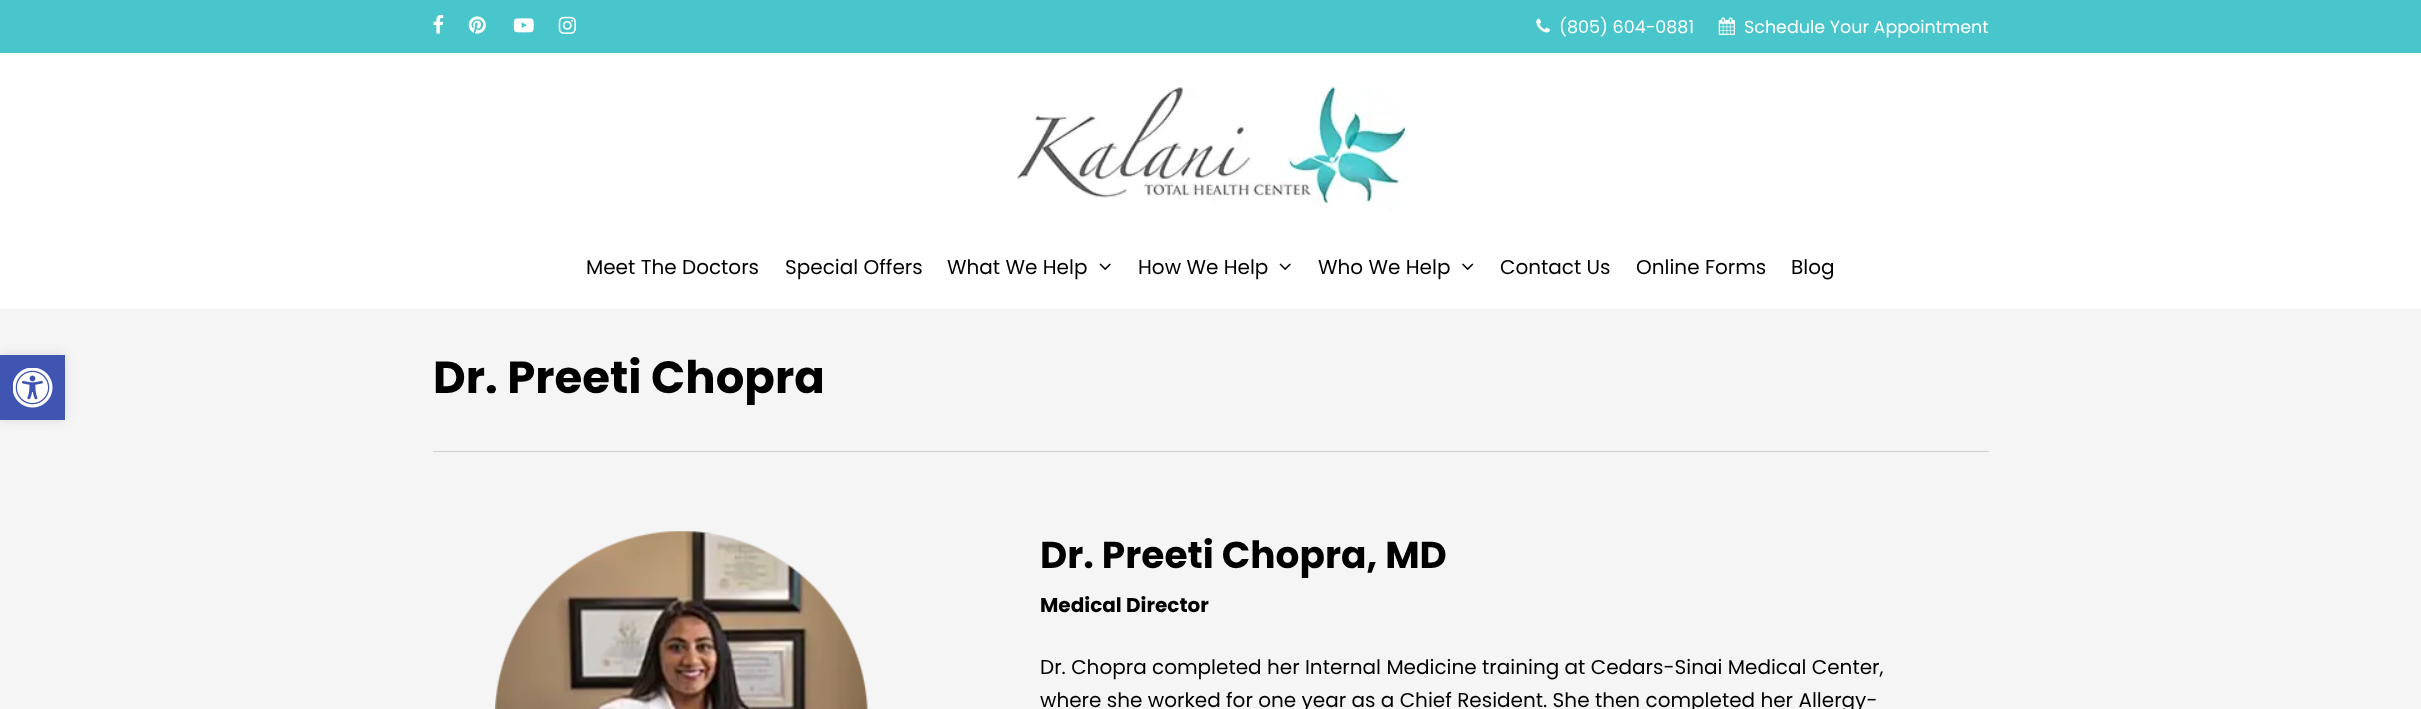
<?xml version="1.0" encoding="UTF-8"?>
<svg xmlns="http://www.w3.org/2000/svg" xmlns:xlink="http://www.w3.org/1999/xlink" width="2421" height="709">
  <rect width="100%" height="100%" fill="#f5f5f5" />
  <rect y="355" width="65" height="65" fill="#000000" fill-opacity="0.1" filter="blur(6px)" />
  <rect y="355" width="65" height="65" fill="#4054b2" />
  <image x="13" y="368" width="40" height="40" xlink:href="image1.png" />
  <rect y="53" width="2421" height="256" fill="#ffffff" />
  <rect width="2421" height="53" fill="#49c6cb" />
  <image x="433" y="15" width="11" height="19" xlink:href="image2.png" />
  <image x="468" y="16" width="18" height="18" xlink:href="image3.png" />
  <image x="513" y="18" width="21" height="15" xlink:href="image4.png" />
  <image x="558" y="16" width="18" height="18" xlink:href="image5.png" />
  <image x="1536" y="18" width="14" height="15" xlink:href="image6.png" />
  <image x="1718" y="17" width="17" height="18" xlink:href="image7.png" />
  <image x="1017" y="87" width="388" height="125" xlink:href="image8.png" />
  <image x="1099" y="263" width="12" height="7" xlink:href="image9.png" />
  <image x="1279" y="263" width="12" height="7" xlink:href="image9.png" />
  <image x="1462" y="263" width="12" height="7" xlink:href="image10.png" />
  <rect x="433" y="451" width="1556" height="1" fill="#d0d0d0" />
  <image x="495" y="531" width="373" height="178" xlink:href="image11.png" />
  <text x="1559" y="33" style="font-family: Poppins; font-size: 17.5px; fill: #ffffff">(805) 604-0881</text>
  <text x="1744" y="33" style="font-family: Poppins; font-size: 17.5px; fill: #ffffff">Schedule Your Appointment</text>
  <text x="586" y="274" style="font-family: Poppins; font-size: 20px; fill: #000000">Meet The Doctors</text>
  <text x="785" y="274" style="font-family: Poppins; font-size: 20px; fill: #000000">Special Offers</text>
  <text x="947" y="274" style="font-family: Poppins; font-size: 20px; fill: #000000">What We Help</text>
  <text x="1138" y="274" style="font-family: Poppins; font-size: 20px; fill: #000000">How We Help</text>
  <text x="1318" y="274" style="font-family: Poppins; font-size: 20px; fill: #000000">Who We Help</text>
  <text x="1500" y="274" style="font-family: Poppins; font-size: 20px; fill: #000000">Contact Us</text>
  <text x="1636" y="274" style="font-family: Poppins; font-size: 20px; fill: #000000">Online Forms</text>
  <text x="1791" y="274" style="font-family: Poppins; font-size: 20px; fill: #000000">Blog</text>
  <text x="433" y="393" style="font-family: Poppins; font-size: 45px; font-weight: bold; fill: #000000">Dr. Preeti Chopra</text>
  <text x="1040" y="568" style="font-family: Poppins; font-size: 37.5px; font-weight: bold; fill: #000000">Dr. Preeti Chopra, MD</text>
  <text x="1040" y="612" style="font-family: Poppins; font-size: 20px; font-weight: bold; fill: #000000">Medical Director</text>
  <text x="1040" y="674" style="font-family: Poppins; font-size: 20px; fill: #000000">Dr. Chopra completed her Internal Medicine training at Cedars-Sinai Medical Center,</text>
  <text x="1040" y="707" style="font-family: Poppins; font-size: 20px; fill: #000000">where she worked for one year as a Chief Resident. She then completed her Allergy-</text>
</svg>
